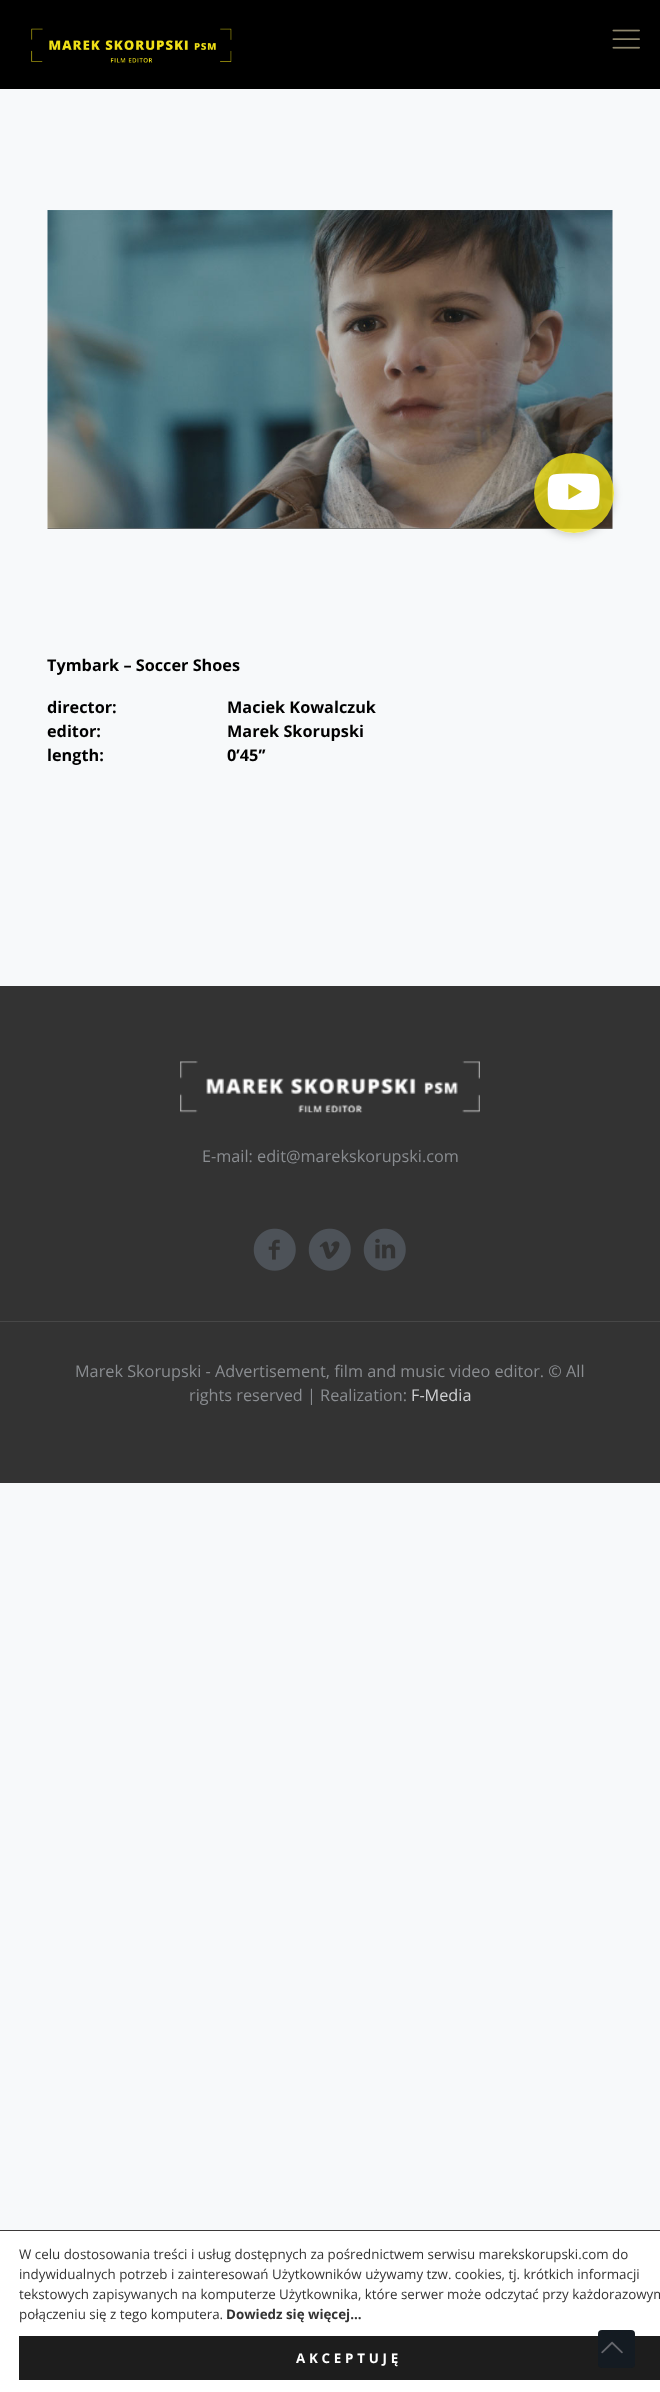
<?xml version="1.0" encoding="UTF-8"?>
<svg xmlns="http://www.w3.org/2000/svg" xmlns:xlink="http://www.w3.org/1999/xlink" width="660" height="2392">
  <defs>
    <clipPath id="clip1"><path d="M 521 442 h 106 v 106 h -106 z m 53 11 c 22 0 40 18 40 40 c 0 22 -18 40 -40 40 c -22 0 -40 -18 -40 -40 c 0 -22 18 -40 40 -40 z" clip-rule="evenodd" /></clipPath>
  </defs>
  <rect width="100%" height="100%" fill="#f7f9fa" />
  <rect width="660" height="89" fill="#000000" />
  <image x="31" y="28" width="201" height="35" xlink:href="image1.png" />
  <image x="612" y="29" width="28" height="20" xlink:href="image2.png" />
  <image x="47" y="210" width="566" height="319" xlink:href="image3.png" />
  <g clip-path="url(#clip1)">
    <rect x="534" y="455" width="80" height="80" rx="40" fill="#000000" fill-opacity="0.2" filter="blur(4px)" />
  </g>
  <circle cx="574" cy="493" r="40" fill="#efdf16" fill-opacity="0.8" />
  <image x="547" y="473" width="53" height="37" xlink:href="image4.png" />
  <rect y="986" width="660" height="497" fill="#333333" />
  <image x="180" y="1061" width="300" height="52" xlink:href="image5.png" />
  <image x="253" y="1228" width="43" height="43" xlink:href="image6.png" />
  <image x="308" y="1228" width="43" height="43" xlink:href="image7.png" />
  <image x="363" y="1228" width="43" height="43" xlink:href="image8.png" />
  <rect y="1321" width="660" height="1" fill="#474747" />
  <rect y="2231" width="660" height="161" fill="#ffffff" />
  <rect y="2230" width="660" height="1" fill="#3b3939" />
  <rect x="19" y="2336" width="641" height="44" fill="#1d1d1d" />
  <rect x="598" y="2330" width="37" height="38" rx="4" fill="#141b22" />
  <image x="601" y="2341" width="22" height="13" xlink:href="image9.png" />
  <text x="47" y="671" style="font-family: Open Sans; font-size: 16.25px; font-weight: bold; fill: #000000">Tymbark – Soccer Shoes</text>
  <text x="47" y="713" style="font-family: Open Sans; font-size: 16.25px; font-weight: bold; fill: #000000">director:</text>
  <text x="227" y="713" style="font-family: Open Sans; font-size: 16.25px; font-weight: bold; fill: #000000">Maciek Kowalczuk</text>
  <text x="47" y="737" style="font-family: Open Sans; font-size: 16.25px; font-weight: bold; fill: #000000">editor:</text>
  <text x="227" y="737" style="font-family: Open Sans; font-size: 16.25px; font-weight: bold; fill: #000000">Marek Skorupski</text>
  <text x="47" y="761" style="font-family: Open Sans; font-size: 16.25px; font-weight: bold; fill: #000000">length:</text>
  <text x="227" y="761" style="font-family: Open Sans; font-size: 16.25px; font-weight: bold; fill: #000000">0’45’’</text>
  <text x="202" y="1162" style="font-family: Open Sans; font-size: 16.25px; fill: #8a8d91">E-mail: edit@marekskorupski.com</text>
  <text x="75" y="1377" style="font-family: Open Sans; font-size: 16.25px; fill: #8a8d91">Marek Skorupski - Advertisement, film and music video editor. © All</text>
  <text x="189" y="1401" style="font-family: Open Sans; font-size: 16.25px; fill: #8a8d91">rights reserved | Realization:</text>
  <text x="411" y="1401" style="font-family: Open Sans; font-size: 16.25px; fill: #d0d1d3">F-Media</text>
  <text x="19" y="2259" style="font-family: Open Sans; font-size: 13.35px; fill: #333333">W celu dostosowania treści i usług dostępnych za pośrednictwem serwisu marekskorupski.com do</text>
  <text x="19" y="2279" style="font-family: Open Sans; font-size: 13.35px; fill: #333333">indywidualnych potrzeb i zainteresowań Użytkowników używamy tzw. cookies, tj. krótkich informacji</text>
  <text x="19" y="2299" style="font-family: Open Sans; font-size: 13.35px; fill: #333333">tekstowych zapisywanych na komputerze Użytkownika, które serwer może odczytać przy każdorazowym</text>
  <text x="19" y="2319" style="font-family: Open Sans; font-size: 13.35px; fill: #333333">połączeniu się z tego komputera.</text>
  <text x="226" y="2319" style="font-family: Open Sans; font-size: 13.35px; font-weight: bold; fill: #333333">Dowiedz się więcej...</text>
  <text x="296" y="2363" style="font-family: Open Sans; font-size: 13.35px; font-weight: bold; letter-spacing: 3.75px; fill: #ffffff">AKCEPTUJĘ</text>
</svg>
